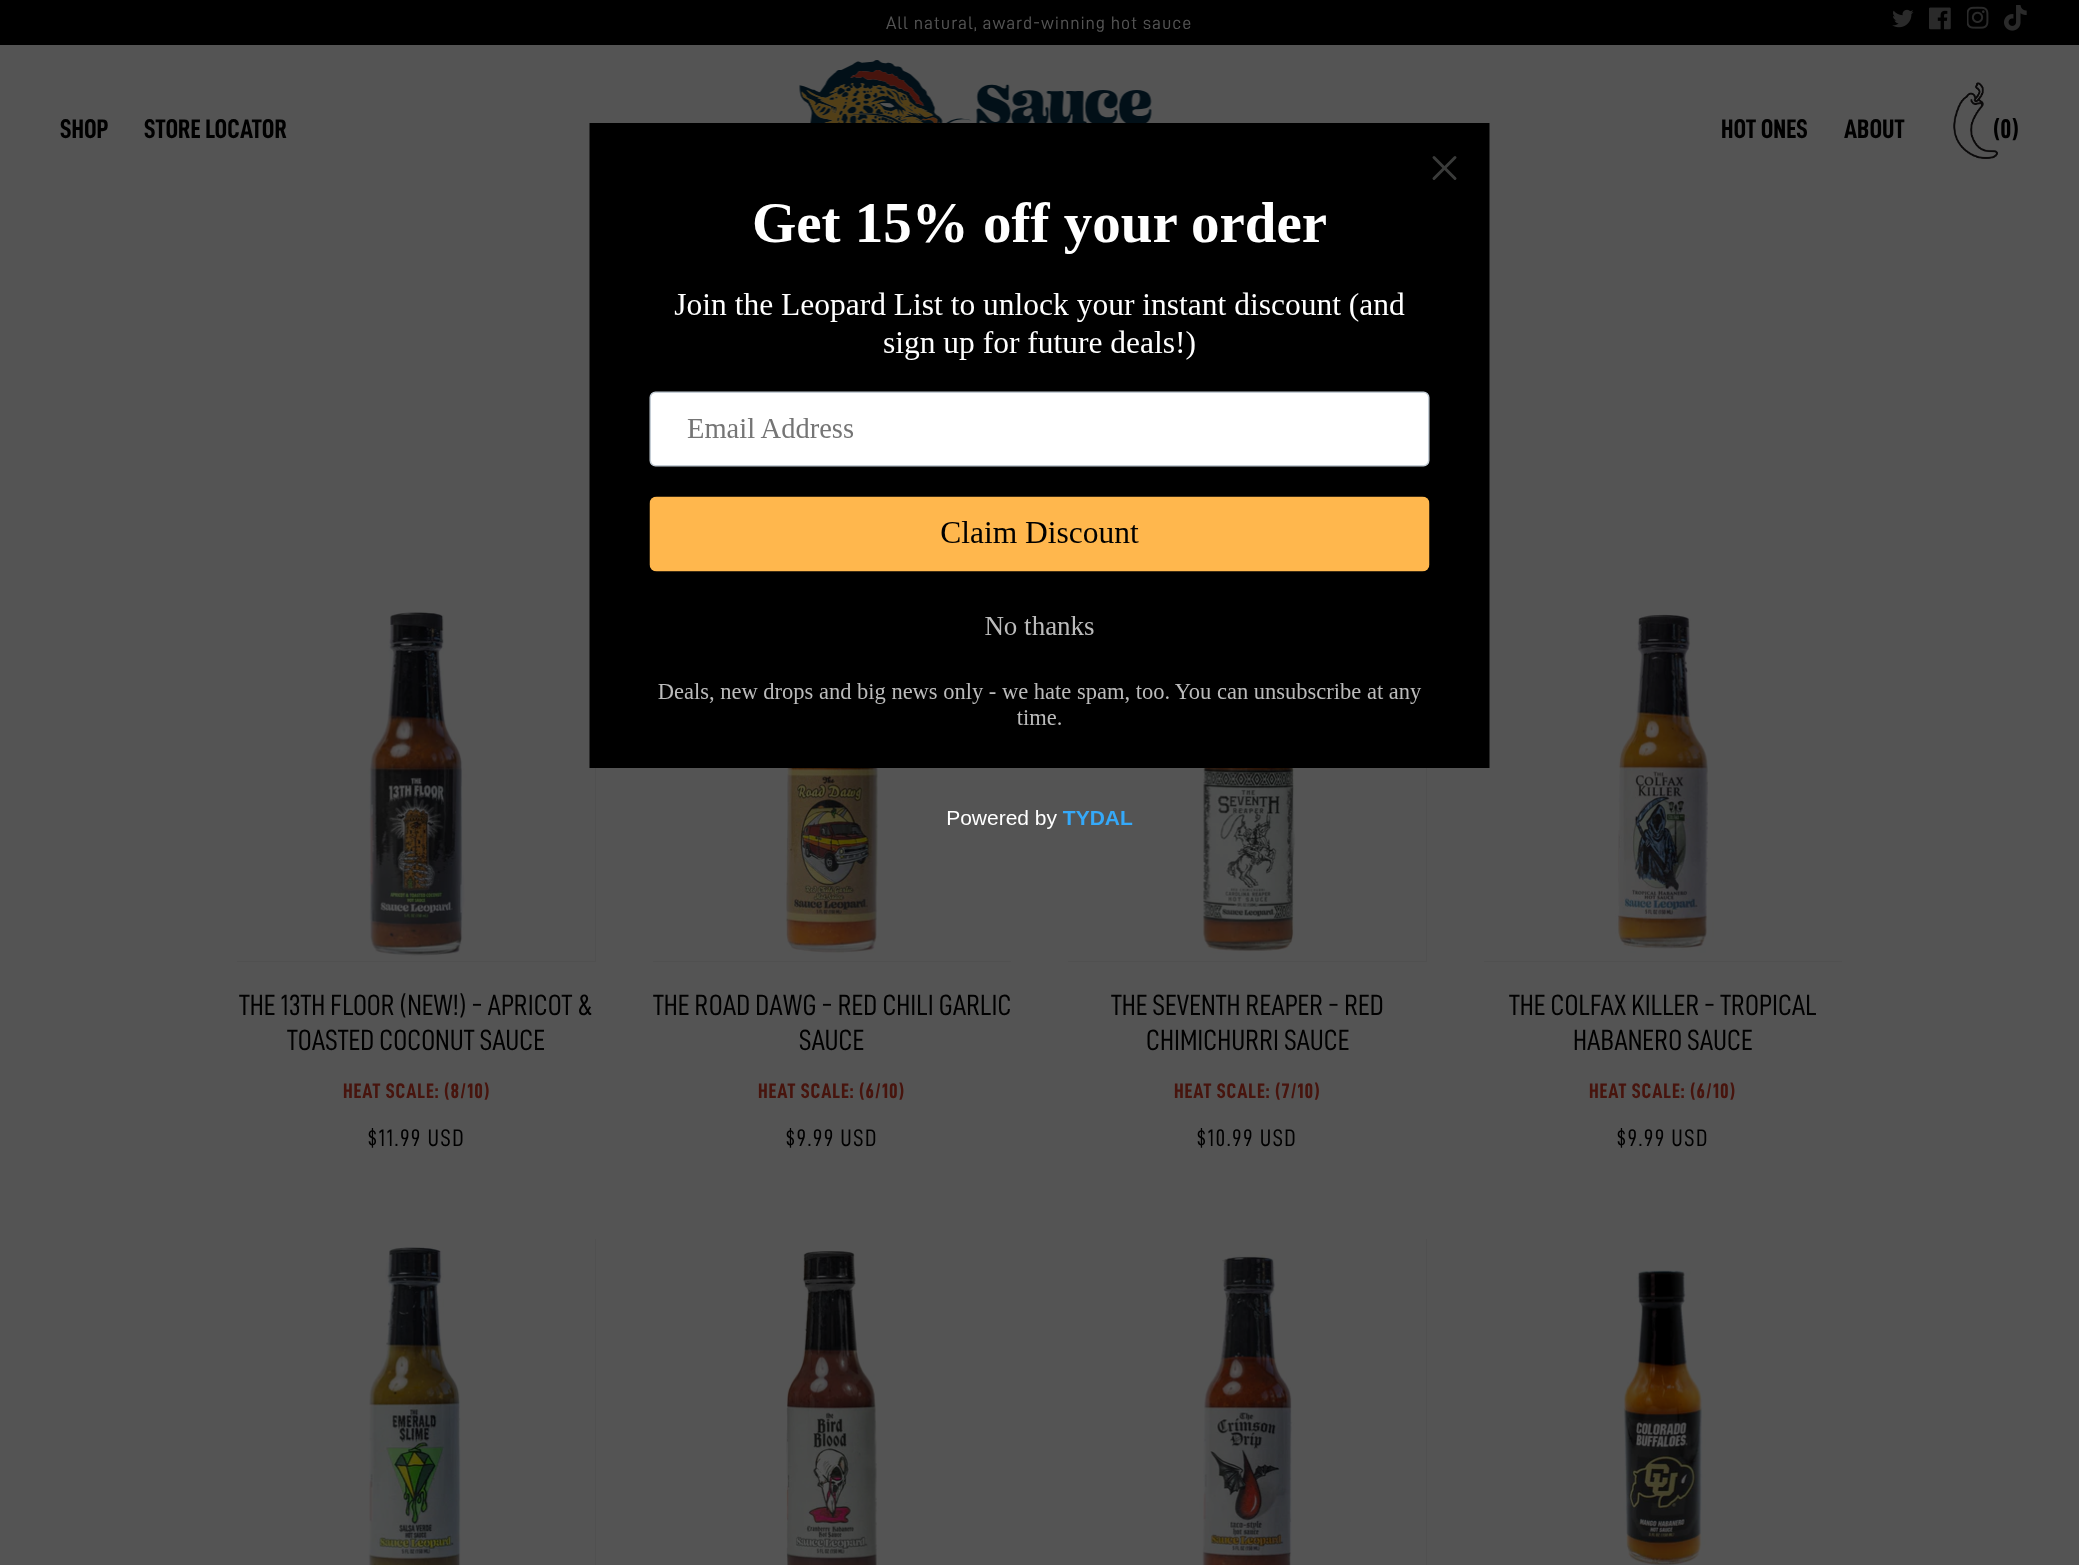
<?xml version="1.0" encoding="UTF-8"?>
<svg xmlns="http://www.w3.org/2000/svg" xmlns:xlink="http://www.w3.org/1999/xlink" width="2079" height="1565">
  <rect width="100%" height="100%" fill="#ffffff" />
  <rect width="2079" height="45" fill="#000000" />
  <image x="1892" y="9" width="22" height="19" xlink:href="image2.png" />
  <image x="1929" y="7" width="22" height="23" xlink:href="image3.png" />
  <image x="1967" y="6" width="22" height="23" xlink:href="image4.png" />
  <image x="2004" y="5" width="23" height="26" xlink:href="image5.png" />
  <image x="799" y="60" width="353" height="63" xlink:href="image6.png" />
  <rect x="237" y="768" width="359" height="194" fill="#f3f3f3" />
  <image x="237" y="603" width="358" height="358" xlink:href="image8.png" />
  <rect x="653" y="961" width="358" height="1" fill="#f3f3f3" />
  <image x="653" y="768" width="358" height="193" xlink:href="image9.png" />
  <rect x="1068" y="768" width="359" height="194" fill="#f3f3f3" />
  <image x="1068" y="768" width="358" height="193" xlink:href="image10.png" />
  <rect x="1484" y="961" width="358" height="1" fill="#f3f3f3" />
  <image x="1484" y="603" width="358" height="358" xlink:href="image11.png" />
  <rect x="595" y="1239" width="1" height="326" fill="#f3f3f3" />
  <image x="237" y="1239" width="358" height="326" xlink:href="image12.png" />
  <image x="653" y="1239" width="358" height="326" xlink:href="image13.png" />
  <rect x="1426" y="1239" width="1" height="326" fill="#f3f3f3" />
  <image x="1068" y="1239" width="358" height="326" xlink:href="image14.png" />
  <image x="1484" y="1239" width="358" height="326" xlink:href="image15.png" />
  <text x="886" y="29" style="font-family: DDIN; font-size: 18px; letter-spacing: 0.9px; fill: #ffffff">All natural, award-winning hot sauce</text>
  <text x="60" y="138" style="font-family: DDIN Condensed; font-size: 27px; font-weight: bold; fill: #000000">SHOP</text>
  <text x="144" y="138" style="font-family: DDIN Condensed; font-size: 27px; font-weight: bold; fill: #000000">STORE LOCATOR</text>
  <text x="1721" y="138" style="font-family: DDIN Condensed; font-size: 27px; font-weight: bold; fill: #000000">HOT ONES</text>
  <text x="1844" y="138" style="font-family: DDIN Condensed; font-size: 27px; font-weight: bold; fill: #000000">ABOUT</text>
  <text x="1993" y="138" style="font-family: DDIN Condensed; font-size: 27px; font-weight: bold; fill: #000000">(0)</text>
  <image x="1953" y="82" width="45" height="77" xlink:href="image7.png" />
  <text x="239" y="1015" style="font-family: DDIN Condensed; font-size: 29.25px; fill: #000000">THE 13TH FLOOR (NEW!) - APRICOT &amp;</text>
  <text x="287" y="1050" style="font-family: DDIN Condensed; font-size: 29.25px; fill: #000000">TOASTED COCONUT SAUCE</text>
  <text x="343" y="1098" style="font-family: DDIN Condensed; font-size: 21px; font-weight: bold; letter-spacing: 0.9px; fill: #d63e29">HEAT SCALE: (8/10)</text>
  <text x="368" y="1146" style="font-family: DDIN Condensed; font-size: 24px; letter-spacing: 1.5px; fill: #000000">$11.99 USD</text>
  <text x="653" y="1015" style="font-family: DDIN Condensed; font-size: 29.25px; fill: #000000">THE ROAD DAWG - RED CHILI GARLIC</text>
  <text x="799" y="1050" style="font-family: DDIN Condensed; font-size: 29.25px; fill: #000000">SAUCE</text>
  <text x="758" y="1098" style="font-family: DDIN Condensed; font-size: 21px; font-weight: bold; letter-spacing: 0.9px; fill: #d63e29">HEAT SCALE: (6/10)</text>
  <text x="786" y="1146" style="font-family: DDIN Condensed; font-size: 24px; letter-spacing: 1.5px; fill: #000000">$9.99 USD</text>
  <text x="1111" y="1015" style="font-family: DDIN Condensed; font-size: 29.25px; fill: #000000">THE SEVENTH REAPER - RED</text>
  <text x="1146" y="1050" style="font-family: DDIN Condensed; font-size: 29.25px; fill: #000000">CHIMICHURRI SAUCE</text>
  <text x="1174" y="1098" style="font-family: DDIN Condensed; font-size: 21px; font-weight: bold; letter-spacing: 0.9px; fill: #d63e29">HEAT SCALE: (7/10)</text>
  <text x="1197" y="1146" style="font-family: DDIN Condensed; font-size: 24px; letter-spacing: 1.5px; fill: #000000">$10.99 USD</text>
  <text x="1509" y="1015" style="font-family: DDIN Condensed; font-size: 29.25px; fill: #000000">THE COLFAX KILLER - TROPICAL</text>
  <text x="1573" y="1050" style="font-family: DDIN Condensed; font-size: 29.25px; fill: #000000">HABANERO SAUCE</text>
  <text x="1589" y="1098" style="font-family: DDIN Condensed; font-size: 21px; font-weight: bold; letter-spacing: 0.9px; fill: #d63e29">HEAT SCALE: (6/10)</text>
  <text x="1617" y="1146" style="font-family: DDIN Condensed; font-size: 24px; letter-spacing: 1.5px; fill: #000000">$9.99 USD</text>
  <image x="0" y="5" width="2079" height="1560" xlink:href="image1.png" />
</svg>
